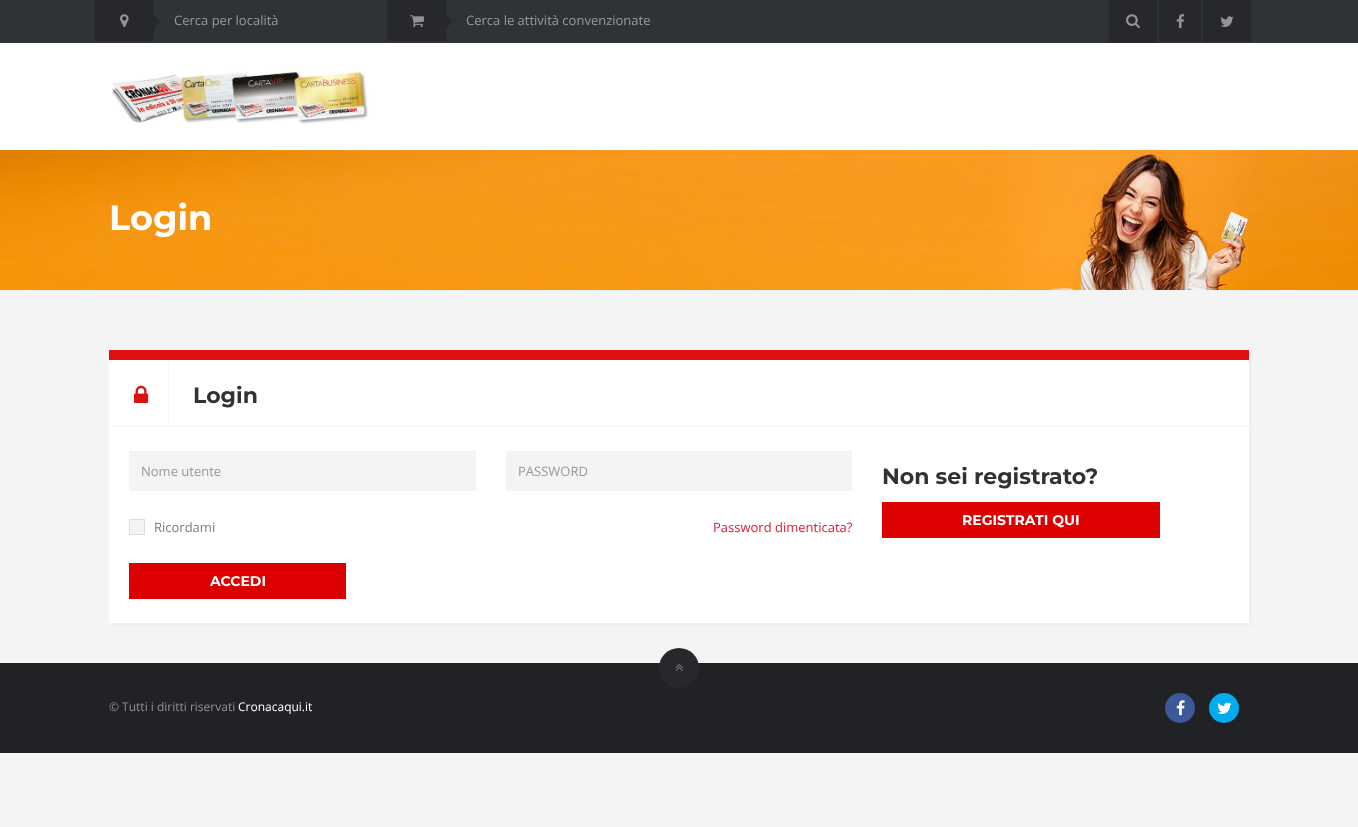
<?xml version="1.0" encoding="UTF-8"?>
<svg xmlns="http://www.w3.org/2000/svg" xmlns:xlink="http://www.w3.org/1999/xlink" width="1358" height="827">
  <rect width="100%" height="100%" fill="#f4f4f4" />
  <rect width="1358" height="43" fill="#2f3336" />
  <rect x="94" width="60" height="41" fill="#27282c" />
  <image x="120" y="14" width="9" height="13" xlink:href="image1.png" />
  <image x="154" y="16" width="6" height="11" xlink:href="image2.png" />
  <rect x="387" width="60" height="41" fill="#27282c" />
  <image x="410" y="15" width="14" height="12" xlink:href="image3.png" />
  <rect x="446" width="1" height="40" fill="#2f3336" />
  <image x="446" y="15" width="7" height="13" xlink:href="image4.png" />
  <rect x="1109" width="48" height="43" fill="#27282c" />
  <image x="1126" y="14" width="14" height="15" xlink:href="image5.png" />
  <rect x="1159" width="42" height="42" fill="#27282c" />
  <image x="1176" y="14" width="8" height="15" xlink:href="image6.png" />
  <rect x="1203" width="48" height="42" fill="#27282c" />
  <image x="1220" y="16" width="14" height="11" xlink:href="image7.png" />
  <rect y="43" width="1358" height="107" fill="#ffffff" />
  <image x="112" y="71" width="257" height="53" xlink:href="image8.png" />
  <image x="0" y="150" width="1358" height="140" xlink:href="image9.png" />
  <path d="M 112 623 v 3 h 1140 v -273 h -3 v 270 z" fill="#efefef" />
  <rect x="109" y="360" width="1140" height="263" fill="#ffffff" />
  <rect x="109" y="350" width="1140" height="10" fill="#dd1111" />
  <rect x="109" y="426" width="1140" height="1" fill="#f4f4f4" />
  <rect x="168" y="360" width="1" height="64" fill="#f4f4f4" />
  <image x="134" y="385" width="15" height="18" xlink:href="image10.png" />
  <rect x="129" y="451" width="347" height="40" fill="#f4f4f4" />
  <rect x="506" y="451" width="346" height="40" fill="#f4f4f4" />
  <rect x="129.5" y="519.5" width="15" height="15" fill="#f4f4f4" stroke="#dddddd" />
  <rect x="129" y="563" width="217" height="36" fill="#dd0000" />
  <rect x="882" y="502" width="278" height="36" fill="#dd0000" />
  <rect y="663" width="1358" height="90" fill="#212225" />
  <circle cx="679" cy="668" r="20" fill="#27282c" />
  <image x="675" y="664" width="8" height="7" xlink:href="image11.png" />
  <circle cx="1180" cy="708" r="15" fill="#3b5998" />
  <image x="1176" y="700" width="9" height="16" xlink:href="image12.png" />
  <circle cx="1224" cy="708" r="15" fill="#00aced" />
  <image x="1217" y="702" width="15" height="12" xlink:href="image13.png" />
  <text x="174" y="25" style="font-family: Open Sans; font-size: 13px; fill: #999999">Cerca per località</text>
  <text x="466" y="25" style="font-family: Open Sans; font-size: 13px; fill: #999999">Cerca le attività convenzionate</text>
  <text x="109" y="230" style="font-family: Montserrat; font-size: 35px; font-weight: bold; fill: #ffffff">Login</text>
  <text x="193" y="403" style="font-family: Montserrat; font-size: 22px; font-weight: bold; fill: #2f3336">Login</text>
  <text x="141" y="476" style="font-family: Open Sans; font-size: 13px; fill: #999999">Nome utente</text>
  <text x="518" y="476" style="font-family: Open Sans; font-size: 13px; fill: #999999">PASSWORD</text>
  <text x="154" y="532" style="font-family: Open Sans; font-size: 13px; fill: #7c7c7c">Ricordami</text>
  <text x="713" y="532" style="font-family: Open Sans; font-size: 13px; fill: #da1b36">Password dimenticata?</text>
  <text x="210" y="586" style="font-family: Montserrat; font-size: 14px; font-weight: bold; fill: #ffffff">ACCEDI</text>
  <text x="882" y="484" style="font-family: Montserrat; font-size: 22px; font-weight: bold; fill: #2f3336">Non sei registrato?</text>
  <text x="962" y="525" style="font-family: Montserrat; font-size: 14px; font-weight: bold; fill: #ffffff">REGISTRATI QUI</text>
  <text x="109" y="711" style="font-family: Open Sans; font-size: 12px; fill: #919394">© Tutti i diritti riservati</text>
  <text x="238" y="711" style="font-family: Open Sans; font-size: 12px; fill: #ffffff">Cronacaqui.it</text>
</svg>
